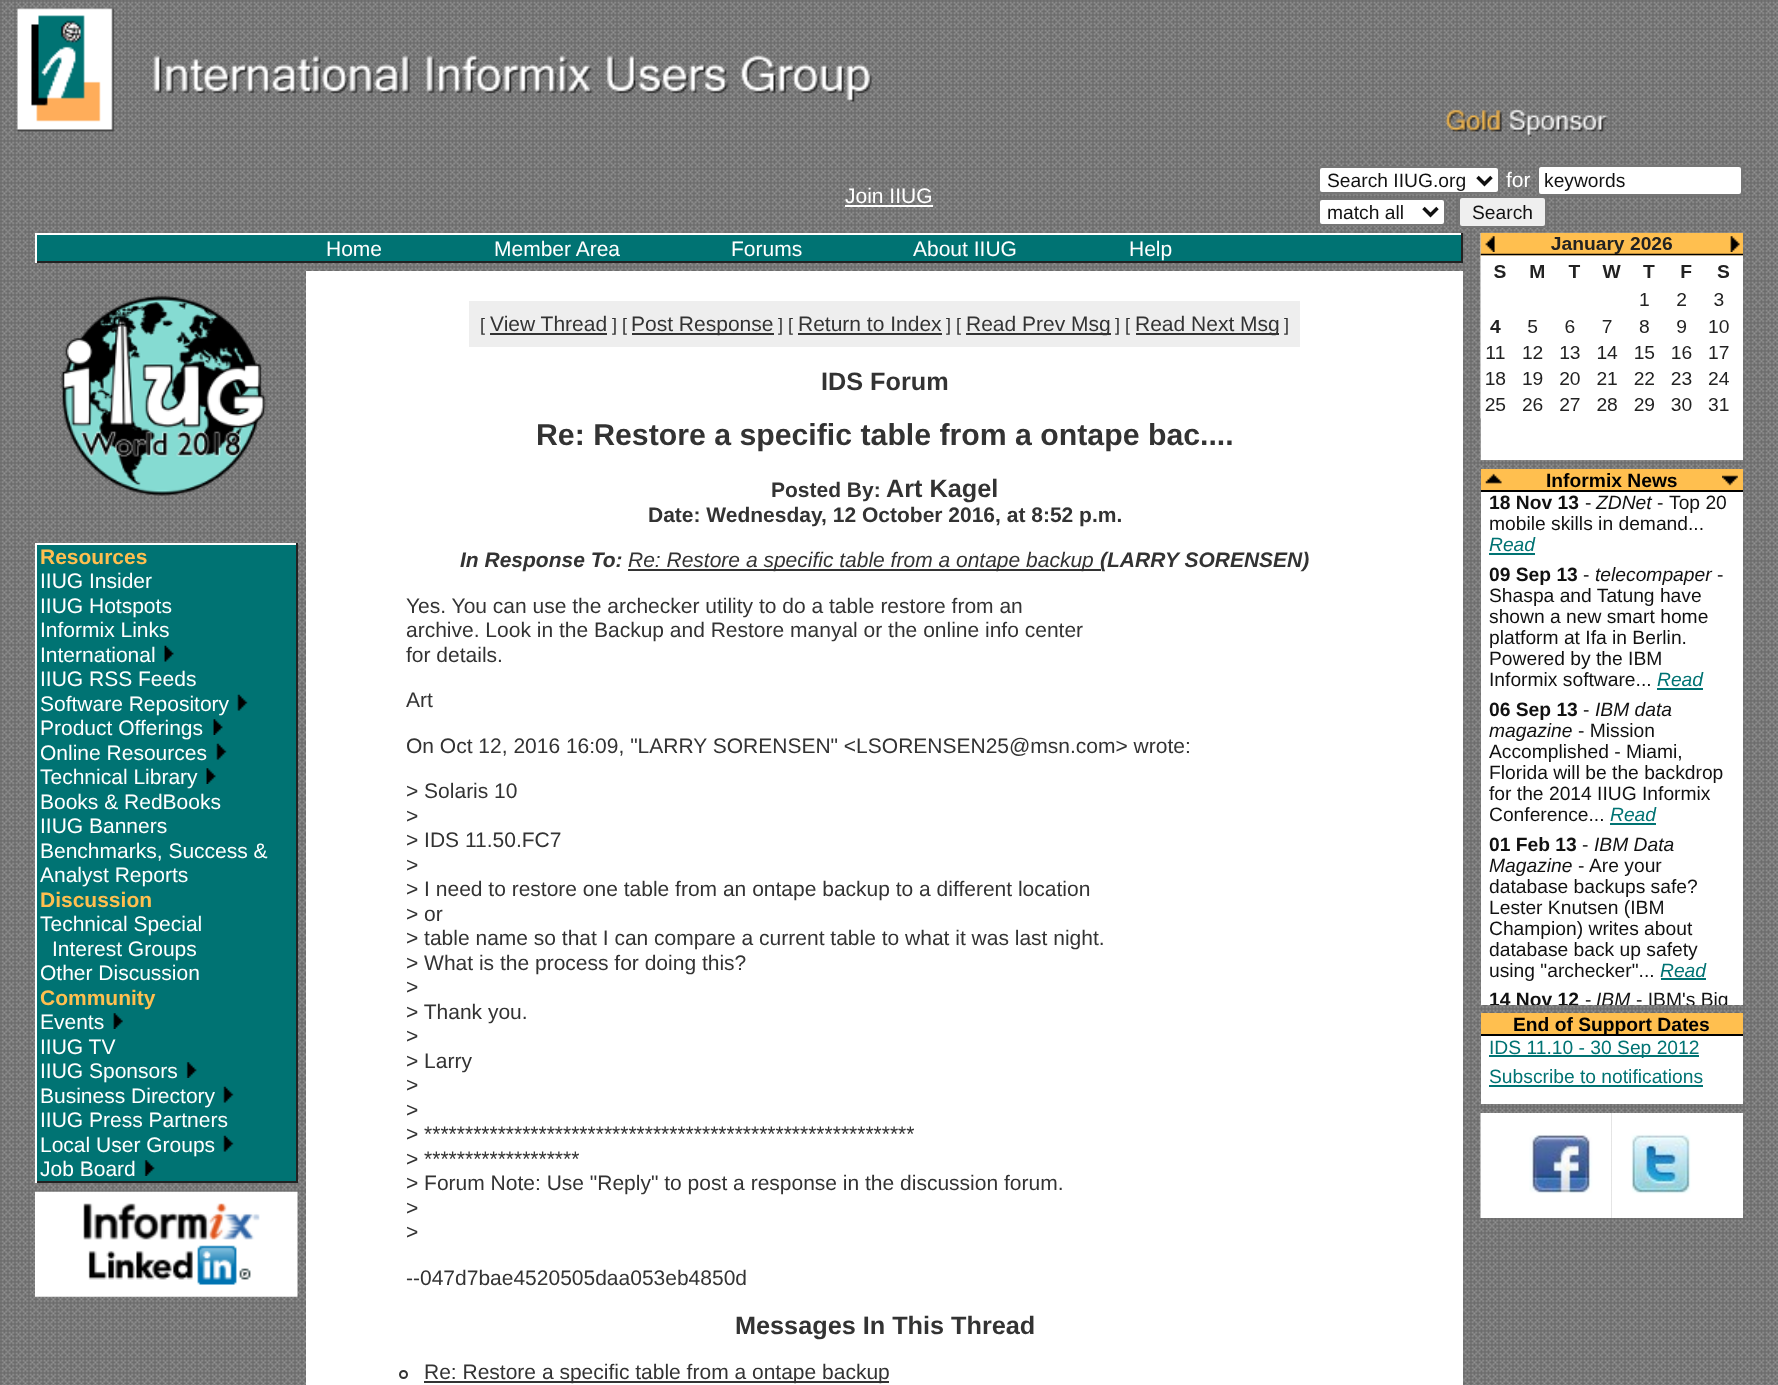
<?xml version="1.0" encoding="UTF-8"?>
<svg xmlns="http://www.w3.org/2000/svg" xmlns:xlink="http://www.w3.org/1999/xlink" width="1778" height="1385">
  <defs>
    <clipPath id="clip1"><rect x="1481" y="492" width="262" height="513" /></clipPath>
  </defs>
  <rect width="100%" height="100%" fill="#ffffff" />
  <image x="0" y="0" width="1778" height="1385" xlink:href="image1.png" />
  <image x="17" y="8" width="855" height="124" xlink:href="image2.png" />
  <image x="1445" y="109" width="162" height="28" xlink:href="image3.png" />
  <rect x="845" y="205" width="88" height="2" fill="#ffffff" />
  <rect x="1319" y="167" width="180" height="26" rx="3" fill="#ffffff" stroke="#767676" stroke-width="2" />
  <path d="M 1477.5 177 l 7 7 l 7 -7" fill="none" stroke="#111111" stroke-width="3.5" />
  <rect x="1538" y="166" width="204" height="29" rx="3" fill="#ffffff" stroke="#767676" stroke-width="2" />
  <rect x="1319" y="199" width="126" height="26" rx="3" fill="#ffffff" stroke="#767676" stroke-width="2" />
  <path d="M 1423.5 208 l 7 7 l 7 -7" fill="none" stroke="#111111" stroke-width="3.5" />
  <rect x="1459" y="197" width="87" height="30" rx="3" fill="#efefef" stroke="#767676" stroke-width="2" />
  <rect x="37" y="235" width="1424" height="26" fill="#007373" />
  <rect x="35" y="233" width="1428" height="2" fill="#ffffff" />
  <rect x="1461" y="233" width="2" height="30" fill="#222222" />
  <rect x="35" y="261" width="1428" height="2" fill="#222222" />
  <rect x="35" y="233" width="2" height="30" fill="#ffffff" />
  <image x="61" y="295" width="205" height="201" xlink:href="image4.png" />
  <rect x="37" y="545" width="259" height="636" fill="#007373" />
  <rect x="35" y="543" width="263" height="2" fill="#ffffff" />
  <rect x="296" y="543" width="2" height="640" fill="#222222" />
  <rect x="35" y="1181" width="263" height="2" fill="#222222" />
  <rect x="35" y="543" width="2" height="640" fill="#ffffff" />
  <image x="164" y="645" width="10" height="17" xlink:href="image5.png" />
  <image x="237" y="694" width="11" height="17" xlink:href="image6.png" />
  <image x="213" y="719" width="10" height="16" xlink:href="image7.png" />
  <image x="216" y="743" width="11" height="17" xlink:href="image8.png" />
  <image x="206" y="768" width="10" height="16" xlink:href="image7.png" />
  <image x="113" y="1013" width="10" height="16" xlink:href="image9.png" />
  <image x="186" y="1062" width="11" height="16" xlink:href="image10.png" />
  <image x="223" y="1086" width="11" height="17" xlink:href="image8.png" />
  <image x="223" y="1135" width="11" height="17" xlink:href="image8.png" />
  <image x="144" y="1160" width="11" height="16" xlink:href="image11.png" />
  <image x="35" y="1191" width="263" height="106" xlink:href="image12.png" />
  <rect x="306" y="271" width="1157" height="1114" fill="#ffffff" />
  <rect x="469" y="301" width="831" height="46" fill="#eeeeee" />
  <rect x="490" y="333" width="117" height="2" fill="#333333" />
  <rect x="632" y="333" width="142" height="2" fill="#333333" />
  <rect x="798" y="333" width="144" height="2" fill="#333333" />
  <rect x="966" y="333" width="145" height="2" fill="#333333" />
  <rect x="1136" y="333" width="143" height="2" fill="#333333" />
  <rect x="628" y="569" width="473" height="2" fill="#333333" />
  <circle cx="403.5" cy="1374.5" r="3.5" fill="none" stroke="#333333" stroke-width="2" />
  <rect x="424" y="1381" width="465" height="2" fill="#333333" />
  <image x="1480" y="232" width="263" height="229" xlink:href="image13.png" />
  <rect x="1481" y="492" width="262" height="513" fill="#ffffff" />
  <rect x="1481" y="469" width="262" height="21" fill="#ffbf4f" />
  <image x="1485" y="473" width="17" height="11" xlink:href="image14.png" />
  <image x="1722" y="475" width="16" height="11" xlink:href="image15.png" />
  <rect x="1481" y="490" width="262" height="2" fill="#000000" />
  <rect x="1489" y="553" width="46" height="2" fill="#007373" />
  <rect x="1657" y="688" width="46" height="2" fill="#007373" />
  <rect x="1610" y="823" width="46" height="2" fill="#007373" />
  <rect x="1661" y="978" width="45" height="2" fill="#007373" />
  <rect x="1481" y="1036" width="262" height="68" fill="#ffffff" />
  <rect x="1481" y="1013" width="262" height="21" fill="#ffbf4f" />
  <rect x="1481" y="1034" width="262" height="2" fill="#000000" />
  <rect x="1489" y="1055" width="210" height="2" fill="#007373" />
  <rect x="1489" y="1085" width="214" height="2" fill="#007373" />
  <image x="1480" y="1113" width="132" height="105" xlink:href="image16.png" />
  <image x="1611" y="1113" width="132" height="105" xlink:href="image17.png" />
  <text x="845" y="203" style="font-family: Liberation Sans; font-size: 21px; fill: #ffffff">Join IIUG</text>
  <text x="1327" y="187" style="font-family: Liberation Sans; font-size: 19.25px; fill: #111111">Search IIUG.org</text>
  <text x="1506" y="187" style="font-family: Liberation Sans; font-size: 21px; fill: #ffffff">for</text>
  <text x="1544" y="187" style="font-family: Liberation Sans; font-size: 19.25px; fill: #111111">keywords</text>
  <text x="1327" y="219" style="font-family: Liberation Sans; font-size: 19.25px; fill: #111111">match all</text>
  <text x="1472" y="219" style="font-family: Liberation Sans; font-size: 19.25px; fill: #111111">Search</text>
  <text x="326" y="256" style="font-family: Liberation Sans; font-size: 21px; fill: #ffffff">Home</text>
  <text x="494" y="256" style="font-family: Liberation Sans; font-size: 21px; fill: #ffffff">Member Area</text>
  <text x="731" y="256" style="font-family: Liberation Sans; font-size: 21px; fill: #ffffff">Forums</text>
  <text x="913" y="256" style="font-family: Liberation Sans; font-size: 21px; fill: #ffffff">About IIUG</text>
  <text x="1129" y="256" style="font-family: Liberation Sans; font-size: 21px; fill: #ffffff">Help</text>
  <text x="40" y="564" style="font-family: Liberation Sans; font-size: 21px; font-weight: bold; fill: #ffbf4f">Resources</text>
  <text x="40" y="588" style="font-family: Liberation Sans; font-size: 21px; fill: #ffffff">IIUG Insider</text>
  <text x="40" y="613" style="font-family: Liberation Sans; font-size: 21px; fill: #ffffff">IIUG Hotspots</text>
  <text x="40" y="637" style="font-family: Liberation Sans; font-size: 21px; fill: #ffffff">Informix Links</text>
  <text x="40" y="662" style="font-family: Liberation Sans; font-size: 21px; fill: #ffffff">International</text>
  <text x="40" y="686" style="font-family: Liberation Sans; font-size: 21px; fill: #ffffff">IIUG RSS Feeds</text>
  <text x="40" y="711" style="font-family: Liberation Sans; font-size: 21px; fill: #ffffff">Software Repository</text>
  <text x="40" y="735" style="font-family: Liberation Sans; font-size: 21px; fill: #ffffff">Product Offerings</text>
  <text x="40" y="760" style="font-family: Liberation Sans; font-size: 21px; fill: #ffffff">Online Resources</text>
  <text x="40" y="784" style="font-family: Liberation Sans; font-size: 21px; fill: #ffffff">Technical Library</text>
  <text x="40" y="809" style="font-family: Liberation Sans; font-size: 21px; fill: #ffffff">Books &amp; RedBooks</text>
  <text x="40" y="833" style="font-family: Liberation Sans; font-size: 21px; fill: #ffffff">IIUG Banners</text>
  <text x="40" y="858" style="font-family: Liberation Sans; font-size: 21px; fill: #ffffff">Benchmarks, Success &amp;</text>
  <text x="40" y="882" style="font-family: Liberation Sans; font-size: 21px; fill: #ffffff">Analyst Reports</text>
  <text x="40" y="907" style="font-family: Liberation Sans; font-size: 21px; font-weight: bold; fill: #ffbf4f">Discussion</text>
  <text x="40" y="931" style="font-family: Liberation Sans; font-size: 21px; fill: #ffffff">Technical Special</text>
  <text x="52" y="956" style="font-family: Liberation Sans; font-size: 21px; fill: #ffffff">Interest Groups</text>
  <text x="40" y="980" style="font-family: Liberation Sans; font-size: 21px; fill: #ffffff">Other Discussion</text>
  <text x="40" y="1005" style="font-family: Liberation Sans; font-size: 21px; font-weight: bold; fill: #ffbf4f">Community</text>
  <text x="40" y="1029" style="font-family: Liberation Sans; font-size: 21px; fill: #ffffff">Events</text>
  <text x="40" y="1054" style="font-family: Liberation Sans; font-size: 21px; fill: #ffffff">IIUG TV</text>
  <text x="40" y="1078" style="font-family: Liberation Sans; font-size: 21px; fill: #ffffff">IIUG Sponsors</text>
  <text x="40" y="1103" style="font-family: Liberation Sans; font-size: 21px; fill: #ffffff">Business Directory</text>
  <text x="40" y="1127" style="font-family: Liberation Sans; font-size: 21px; fill: #ffffff">IIUG Press Partners</text>
  <text x="40" y="1152" style="font-family: Liberation Sans; font-size: 21px; fill: #ffffff">Local User Groups</text>
  <text x="40" y="1176" style="font-family: Liberation Sans; font-size: 21px; fill: #ffffff">Job Board</text>
  <text x="480" y="331" style="font-family: Liberation Sans; font-size: 18px; fill: #333333">[</text>
  <text x="490" y="331" style="font-family: Liberation Sans; font-size: 21px; fill: #333333">View Thread</text>
  <text x="612" y="331" style="font-family: Liberation Sans; font-size: 18px; fill: #333333">] [</text>
  <text x="631" y="331" style="font-family: Liberation Sans; font-size: 21px; fill: #333333">Post Response</text>
  <text x="778" y="331" style="font-family: Liberation Sans; font-size: 18px; fill: #333333">] [</text>
  <text x="798" y="331" style="font-family: Liberation Sans; font-size: 21px; fill: #333333">Return to Index</text>
  <text x="946" y="331" style="font-family: Liberation Sans; font-size: 18px; fill: #333333">] [</text>
  <text x="966" y="331" style="font-family: Liberation Sans; font-size: 21px; fill: #333333">Read Prev Msg</text>
  <text x="1115" y="331" style="font-family: Liberation Sans; font-size: 18px; fill: #333333">] [</text>
  <text x="1135" y="331" style="font-family: Liberation Sans; font-size: 21px; fill: #333333">Read Next Msg</text>
  <text x="1284" y="331" style="font-family: Liberation Sans; font-size: 18px; fill: #333333">]</text>
  <text x="821" y="390" style="font-family: Liberation Sans; font-size: 25.25px; font-weight: bold; fill: #333333">IDS Forum</text>
  <text x="536" y="445" style="font-family: Liberation Sans; font-size: 30.25px; font-weight: bold; fill: #333333">Re: Restore a specific table from a ontape bac....</text>
  <text x="771" y="497" style="font-family: Liberation Sans; font-size: 21px; font-weight: bold; fill: #333333">Posted By:</text>
  <text x="886" y="497" style="font-family: Liberation Sans; font-size: 25.25px; font-weight: bold; fill: #333333">Art Kagel</text>
  <text x="648" y="522" style="font-family: Liberation Sans; font-size: 21px; font-weight: bold; fill: #333333">Date: Wednesday, 12 October 2016, at 8:52 p.m.</text>
  <text x="460" y="567" style="font-family: Liberation Sans; font-size: 21px; font-weight: bold; font-style: italic; fill: #333333">In Response To:</text>
  <text x="628" y="567" style="font-family: Liberation Sans; font-size: 21px; font-style: italic; fill: #333333">Re: Restore a specific table from a ontape backup</text>
  <text x="1100" y="567" style="font-family: Liberation Sans; font-size: 21px; font-weight: bold; font-style: italic; fill: #333333">(LARRY SORENSEN)</text>
  <text x="406" y="613" style="font-family: Liberation Sans; font-size: 21px; fill: #333333">Yes. You can use the archecker utility to do a table restore from an</text>
  <text x="406" y="637" style="font-family: Liberation Sans; font-size: 21px; fill: #333333">archive. Look in the Backup and Restore manyal or the online info center</text>
  <text x="406" y="662" style="font-family: Liberation Sans; font-size: 21px; fill: #333333">for details.</text>
  <text x="406" y="707" style="font-family: Liberation Sans; font-size: 21px; fill: #333333">Art</text>
  <text x="406" y="753" style="font-family: Liberation Sans; font-size: 21px; fill: #333333">On Oct 12, 2016 16:09, "LARRY SORENSEN" &lt;LSORENSEN25@msn.com&gt; wrote:</text>
  <text x="406" y="798" style="font-family: Liberation Sans; font-size: 21px; fill: #333333">&gt; Solaris 10</text>
  <text x="406" y="823" style="font-family: Liberation Sans; font-size: 21px; fill: #333333">&gt;</text>
  <text x="406" y="847" style="font-family: Liberation Sans; font-size: 21px; fill: #333333">&gt; IDS 11.50.FC7</text>
  <text x="406" y="872" style="font-family: Liberation Sans; font-size: 21px; fill: #333333">&gt;</text>
  <text x="406" y="896" style="font-family: Liberation Sans; font-size: 21px; fill: #333333">&gt; I need to restore one table from an ontape backup to a different location</text>
  <text x="406" y="921" style="font-family: Liberation Sans; font-size: 21px; fill: #333333">&gt; or</text>
  <text x="406" y="945" style="font-family: Liberation Sans; font-size: 21px; fill: #333333">&gt; table name so that I can compare a current table to what it was last night.</text>
  <text x="406" y="970" style="font-family: Liberation Sans; font-size: 21px; fill: #333333">&gt; What is the process for doing this?</text>
  <text x="406" y="994" style="font-family: Liberation Sans; font-size: 21px; fill: #333333">&gt;</text>
  <text x="406" y="1019" style="font-family: Liberation Sans; font-size: 21px; fill: #333333">&gt; Thank you.</text>
  <text x="406" y="1043" style="font-family: Liberation Sans; font-size: 21px; fill: #333333">&gt;</text>
  <text x="406" y="1068" style="font-family: Liberation Sans; font-size: 21px; fill: #333333">&gt; Larry</text>
  <text x="406" y="1092" style="font-family: Liberation Sans; font-size: 21px; fill: #333333">&gt;</text>
  <text x="406" y="1117" style="font-family: Liberation Sans; font-size: 21px; fill: #333333">&gt;</text>
  <text x="406" y="1141" style="font-family: Liberation Sans; font-size: 21px; fill: #333333">&gt; ************************************************************</text>
  <text x="406" y="1166" style="font-family: Liberation Sans; font-size: 21px; fill: #333333">&gt; *******************</text>
  <text x="406" y="1190" style="font-family: Liberation Sans; font-size: 21px; fill: #333333">&gt; Forum Note: Use "Reply" to post a response in the discussion forum.</text>
  <text x="406" y="1215" style="font-family: Liberation Sans; font-size: 21px; fill: #333333">&gt;</text>
  <text x="406" y="1239" style="font-family: Liberation Sans; font-size: 21px; fill: #333333">&gt;</text>
  <text x="406" y="1285" style="font-family: Liberation Sans; font-size: 21px; fill: #333333">--047d7bae4520505daa053eb4850d</text>
  <text x="735" y="1334" style="font-family: Liberation Sans; font-size: 25.25px; font-weight: bold; fill: #333333">Messages In This Thread</text>
  <text x="424" y="1379" style="font-family: Liberation Sans; font-size: 21px; fill: #333333">Re: Restore a specific table from a ontape backup</text>
  <text x="1546" y="487" style="font-family: Liberation Sans; font-size: 19.25px; font-weight: bold; fill: #000000">Informix News</text>
  <text x="1489" y="509" style="font-family: Liberation Sans; font-size: 19.25px; font-weight: bold; fill: #111111">18 Nov 13</text>
  <text x="1585" y="509" style="font-family: Liberation Sans; font-size: 19.25px; fill: #111111">-</text>
  <text x="1596" y="509" style="font-family: Liberation Sans; font-size: 19.25px; font-style: italic; fill: #111111">ZDNet</text>
  <text x="1657" y="509" style="font-family: Liberation Sans; font-size: 19.25px; fill: #111111">-</text>
  <text x="1669" y="509" style="font-family: Liberation Sans; font-size: 19.25px; fill: #111111">Top 20</text>
  <text x="1489" y="530" style="font-family: Liberation Sans; font-size: 19.25px; fill: #111111">mobile skills in demand...</text>
  <text x="1489" y="551" style="font-family: Liberation Sans; font-size: 19.25px; font-style: italic; fill: #007373">Read</text>
  <text x="1489" y="581" style="font-family: Liberation Sans; font-size: 19.25px; font-weight: bold; fill: #111111">09 Sep 13</text>
  <text x="1583" y="581" style="font-family: Liberation Sans; font-size: 19.25px; fill: #111111">-</text>
  <text x="1595" y="581" style="font-family: Liberation Sans; font-size: 19.25px; font-style: italic; fill: #111111">telecompaper</text>
  <text x="1717" y="581" style="font-family: Liberation Sans; font-size: 19.25px; fill: #111111">-</text>
  <text x="1489" y="602" style="font-family: Liberation Sans; font-size: 19.25px; fill: #111111">Shaspa and Tatung have</text>
  <text x="1489" y="623" style="font-family: Liberation Sans; font-size: 19.25px; fill: #111111">shown a new smart home</text>
  <text x="1489" y="644" style="font-family: Liberation Sans; font-size: 19.25px; fill: #111111">platform at Ifa in Berlin.</text>
  <text x="1489" y="665" style="font-family: Liberation Sans; font-size: 19.25px; fill: #111111">Powered by the IBM</text>
  <text x="1489" y="686" style="font-family: Liberation Sans; font-size: 19.25px; fill: #111111">Informix software...</text>
  <text x="1657" y="686" style="font-family: Liberation Sans; font-size: 19.25px; font-style: italic; fill: #007373">Read</text>
  <text x="1489" y="716" style="font-family: Liberation Sans; font-size: 19.25px; font-weight: bold; fill: #111111">06 Sep 13</text>
  <text x="1583" y="716" style="font-family: Liberation Sans; font-size: 19.25px; fill: #111111">-</text>
  <text x="1595" y="716" style="font-family: Liberation Sans; font-size: 19.25px; font-style: italic; fill: #111111">IBM data</text>
  <text x="1489" y="737" style="font-family: Liberation Sans; font-size: 19.25px; font-style: italic; fill: #111111">magazine</text>
  <text x="1578" y="737" style="font-family: Liberation Sans; font-size: 19.25px; fill: #111111">- Mission</text>
  <text x="1489" y="758" style="font-family: Liberation Sans; font-size: 19.25px; fill: #111111">Accomplished - Miami,</text>
  <text x="1489" y="779" style="font-family: Liberation Sans; font-size: 19.25px; fill: #111111">Florida will be the backdrop</text>
  <text x="1489" y="800" style="font-family: Liberation Sans; font-size: 19.25px; fill: #111111">for the 2014 IIUG Informix</text>
  <text x="1489" y="821" style="font-family: Liberation Sans; font-size: 19.25px; fill: #111111">Conference...</text>
  <text x="1610" y="821" style="font-family: Liberation Sans; font-size: 19.25px; font-style: italic; fill: #007373">Read</text>
  <text x="1489" y="851" style="font-family: Liberation Sans; font-size: 19.25px; font-weight: bold; fill: #111111">01 Feb 13</text>
  <text x="1582" y="851" style="font-family: Liberation Sans; font-size: 19.25px; fill: #111111">-</text>
  <text x="1594" y="851" style="font-family: Liberation Sans; font-size: 19.25px; font-style: italic; fill: #111111">IBM Data</text>
  <text x="1489" y="872" style="font-family: Liberation Sans; font-size: 19.25px; font-style: italic; fill: #111111">Magazine</text>
  <text x="1578" y="872" style="font-family: Liberation Sans; font-size: 19.25px; fill: #111111">-</text>
  <text x="1589" y="872" style="font-family: Liberation Sans; font-size: 19.25px; fill: #111111">Are your</text>
  <text x="1489" y="893" style="font-family: Liberation Sans; font-size: 19.25px; fill: #111111">database backups safe?</text>
  <text x="1489" y="914" style="font-family: Liberation Sans; font-size: 19.25px; fill: #111111">Lester Knutsen (IBM</text>
  <text x="1489" y="935" style="font-family: Liberation Sans; font-size: 19.25px; fill: #111111">Champion) writes about</text>
  <text x="1489" y="956" style="font-family: Liberation Sans; font-size: 19.25px; fill: #111111">database back up safety</text>
  <text x="1489" y="977" style="font-family: Liberation Sans; font-size: 19.25px; fill: #111111">using "archecker"...</text>
  <text x="1660" y="977" style="font-family: Liberation Sans; font-size: 19.25px; font-style: italic; fill: #007373">Read</text>
  <g clip-path="url(#clip1)">
    <text x="1489" y="1006" style="font-family: Liberation Sans; font-size: 19.25px; font-weight: bold; fill: #111111">14 Nov 12</text>
  </g>
  <text x="1585" y="1006" style="font-family: Liberation Sans; font-size: 19.25px; fill: #111111">-</text>
  <g clip-path="url(#clip1)">
    <text x="1596" y="1006" style="font-family: Liberation Sans; font-size: 19.25px; font-style: italic; fill: #111111">IBM</text>
    <text x="1636" y="1006" style="font-family: Liberation Sans; font-size: 19.25px; fill: #111111">- IBM's Big</text>
  </g>
  <text x="1513" y="1031" style="font-family: Liberation Sans; font-size: 19.25px; font-weight: bold; fill: #000000">End of Support Dates</text>
  <text x="1489" y="1054" style="font-family: Liberation Sans; font-size: 19.25px; fill: #007373">IDS 11.10 - 30 Sep 2012</text>
  <text x="1489" y="1083" style="font-family: Liberation Sans; font-size: 19.25px; fill: #007373">Subscribe to notifications</text>
</svg>
